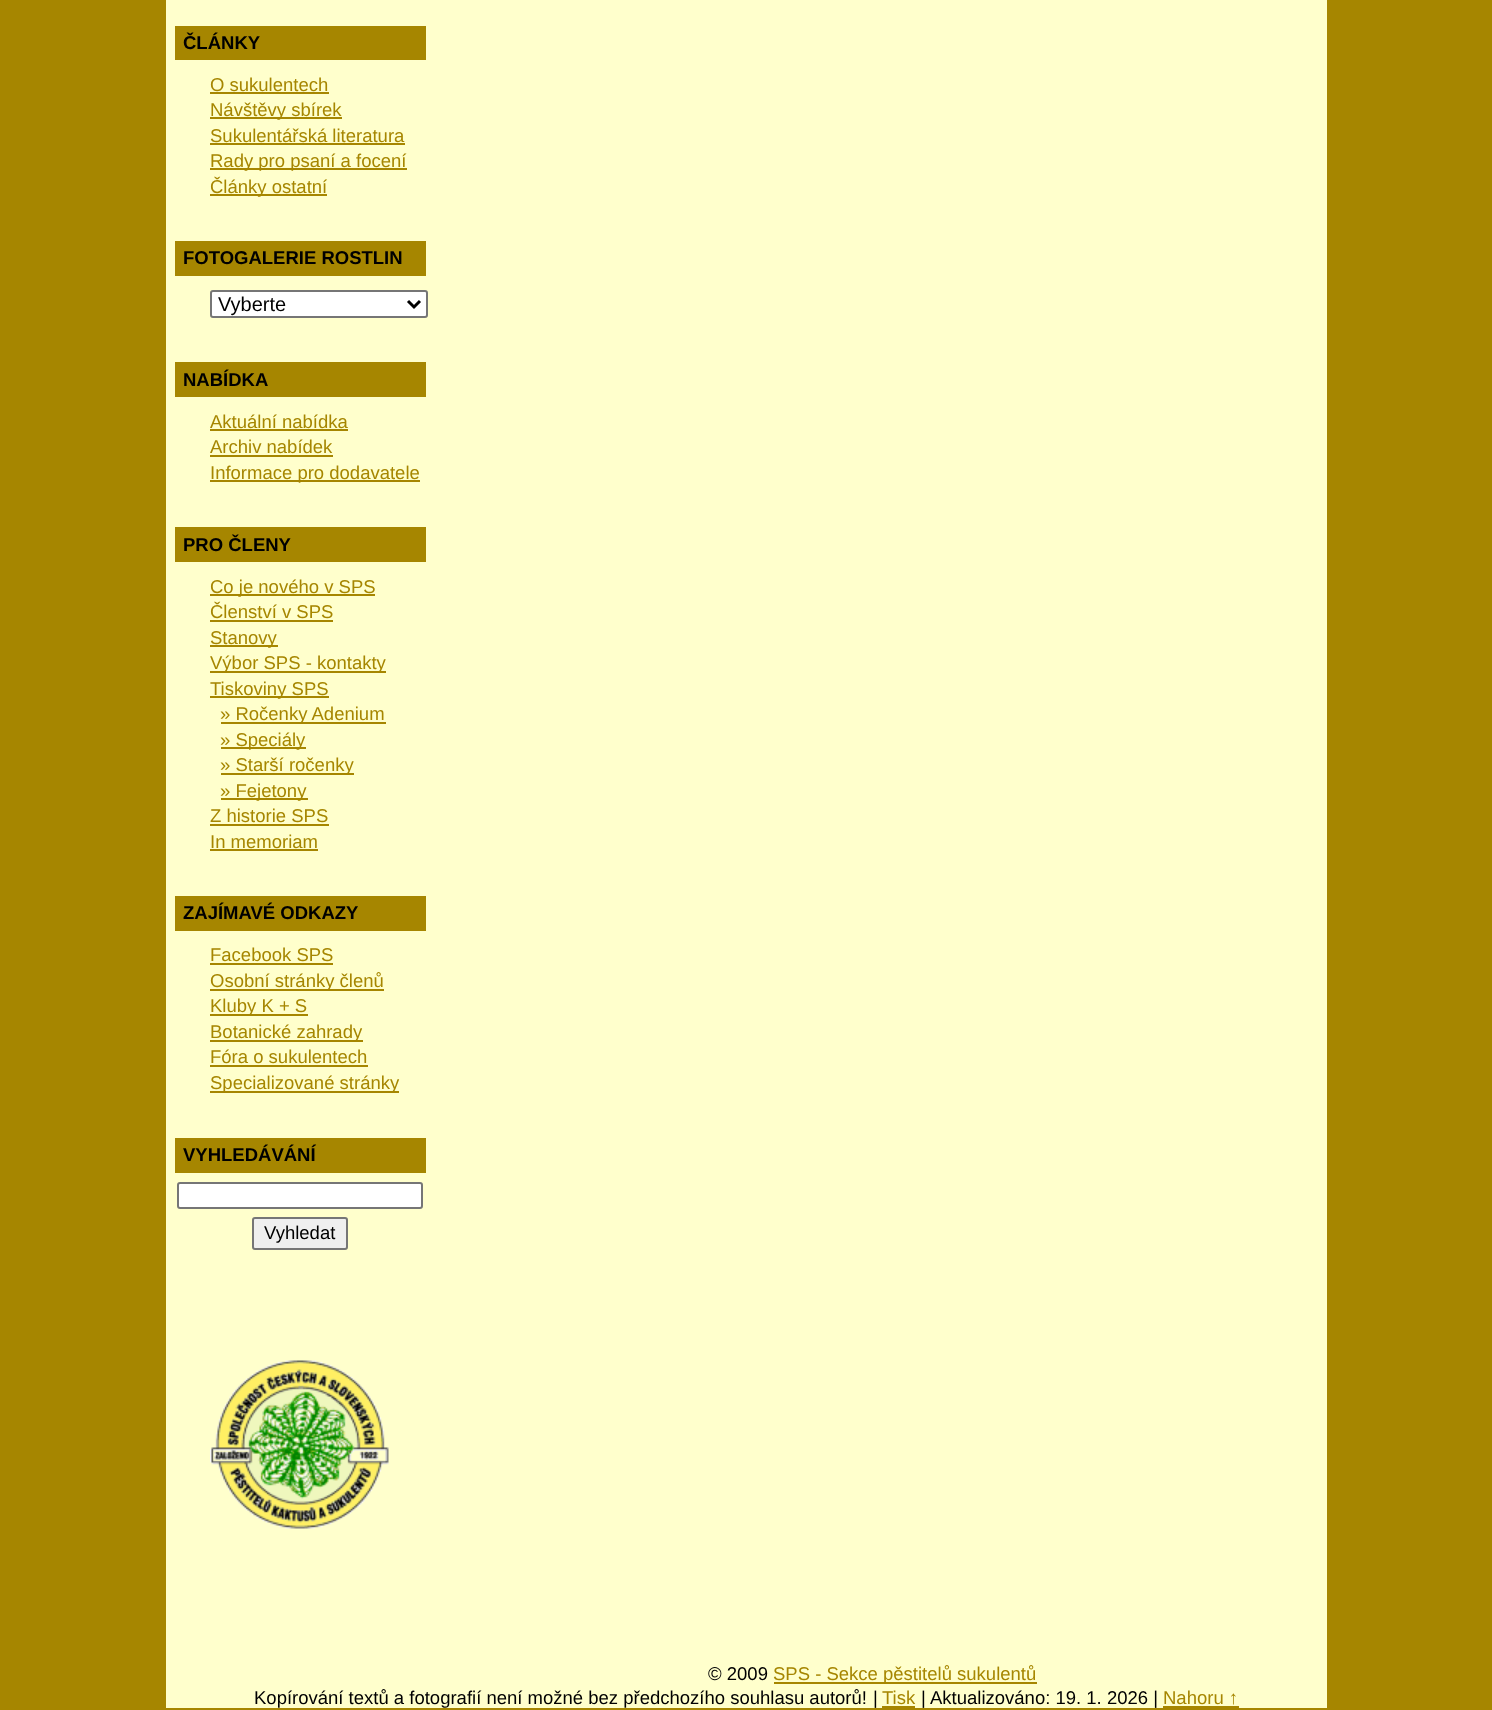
<?xml version="1.0" encoding="UTF-8"?>
<svg xmlns="http://www.w3.org/2000/svg" xmlns:xlink="http://www.w3.org/1999/xlink" width="1492" height="1710">
  <rect width="100%" height="100%" fill="#a68600" />
  <rect x="166" width="1161" height="1708" fill="#ffffcc" />
  <rect x="175" y="26" width="251" height="34" fill="#a68600" />
  <rect x="210" y="92" width="119" height="2" fill="#a68600" />
  <rect x="210" y="117" width="132" height="2" fill="#a68600" />
  <rect x="210" y="143" width="195" height="2" fill="#a68600" />
  <rect x="210" y="168" width="197" height="2" fill="#a68600" />
  <rect x="210" y="194" width="117" height="2" fill="#a68600" />
  <rect x="175" y="241" width="251" height="35" fill="#a68600" />
  <rect x="211" y="291" width="216" height="26" rx="2" fill="#ffffff" stroke="#767676" stroke-width="2" />
  <path d="M 408 301 l 6 6 l 6 -6" fill="none" stroke="#000000" stroke-width="3" />
  <rect x="175" y="362" width="251" height="35" fill="#a68600" />
  <rect x="210" y="429" width="138" height="2" fill="#a68600" />
  <rect x="210" y="455" width="123" height="2" fill="#a68600" />
  <rect x="210" y="480" width="210" height="2" fill="#a68600" />
  <rect x="175" y="527" width="251" height="35" fill="#a68600" />
  <rect x="210" y="594" width="165" height="2" fill="#a68600" />
  <rect x="210" y="620" width="123" height="2" fill="#a68600" />
  <rect x="210" y="645" width="68" height="2" fill="#a68600" />
  <rect x="210" y="671" width="176" height="2" fill="#a68600" />
  <rect x="210" y="696" width="119" height="2" fill="#a68600" />
  <rect x="221" y="722" width="165" height="2" fill="#a68600" />
  <rect x="221" y="747" width="85" height="2" fill="#a68600" />
  <rect x="221" y="773" width="133" height="2" fill="#a68600" />
  <rect x="221" y="798" width="87" height="2" fill="#a68600" />
  <rect x="210" y="824" width="119" height="2" fill="#a68600" />
  <rect x="210" y="849" width="108" height="2" fill="#a68600" />
  <rect x="175" y="896" width="251" height="35" fill="#a68600" />
  <rect x="210" y="963" width="123" height="2" fill="#a68600" />
  <rect x="210" y="989" width="174" height="2" fill="#a68600" />
  <rect x="210" y="1014" width="98" height="2" fill="#a68600" />
  <rect x="210" y="1040" width="153" height="2" fill="#a68600" />
  <rect x="210" y="1065" width="158" height="2" fill="#a68600" />
  <rect x="210" y="1091" width="189" height="2" fill="#a68600" />
  <rect x="175" y="1138" width="251" height="35" fill="#a68600" />
  <rect x="178" y="1183" width="244" height="25" rx="2" fill="#ffffff" stroke="#767676" stroke-width="2" />
  <rect x="253" y="1218" width="94" height="31" rx="2" fill="#efefef" stroke="#767676" stroke-width="2" />
  <image x="210" y="1360" width="179" height="169" xlink:href="image1.png" />
  <rect x="774" y="1682" width="263" height="2" fill="#a68600" />
  <rect x="882" y="1706" width="33" height="2" fill="#a68600" />
  <rect x="1163" y="1706" width="76" height="2" fill="#a68600" />
  <text x="183" y="49" style="font-family: Liberation Sans; font-size: 18.5px; font-weight: bold; fill: #000000">ČLÁNKY</text>
  <text x="210" y="91" style="font-family: Liberation Sans; font-size: 18.5px; fill: #a68600">O sukulentech</text>
  <text x="210" y="116" style="font-family: Liberation Sans; font-size: 18.5px; fill: #a68600">Návštěvy sbírek</text>
  <text x="210" y="142" style="font-family: Liberation Sans; font-size: 18.5px; fill: #a68600">Sukulentářská literatura</text>
  <text x="210" y="167" style="font-family: Liberation Sans; font-size: 18.5px; fill: #a68600">Rady pro psaní a focení</text>
  <text x="210" y="193" style="font-family: Liberation Sans; font-size: 18.5px; fill: #a68600">Články ostatní</text>
  <text x="183" y="264" style="font-family: Liberation Sans; font-size: 18.5px; font-weight: bold; fill: #000000">FOTOGALERIE ROSTLIN</text>
  <text x="218" y="311" style="font-family: Liberation Sans; font-size: 20px; fill: #000000">Vyberte</text>
  <text x="183" y="386" style="font-family: Liberation Sans; font-size: 18.5px; font-weight: bold; fill: #000000">NABÍDKA</text>
  <text x="210" y="428" style="font-family: Liberation Sans; font-size: 18.5px; fill: #a68600">Aktuální nabídka</text>
  <text x="210" y="453" style="font-family: Liberation Sans; font-size: 18.5px; fill: #a68600">Archiv nabídek</text>
  <text x="210" y="479" style="font-family: Liberation Sans; font-size: 18.5px; fill: #a68600">Informace pro dodavatele</text>
  <text x="183" y="551" style="font-family: Liberation Sans; font-size: 18.5px; font-weight: bold; fill: #000000">PRO ČLENY</text>
  <text x="210" y="593" style="font-family: Liberation Sans; font-size: 18.5px; fill: #a68600">Co je nového v SPS</text>
  <text x="210" y="618" style="font-family: Liberation Sans; font-size: 18.5px; fill: #a68600">Členství v SPS</text>
  <text x="210" y="644" style="font-family: Liberation Sans; font-size: 18.5px; fill: #a68600">Stanovy</text>
  <text x="210" y="669" style="font-family: Liberation Sans; font-size: 18.5px; fill: #a68600">Výbor SPS - kontakty</text>
  <text x="210" y="695" style="font-family: Liberation Sans; font-size: 18.5px; fill: #a68600">Tiskoviny SPS</text>
  <text x="220" y="720" style="font-family: Liberation Sans; font-size: 18.5px; fill: #a68600">» Ročenky Adenium</text>
  <text x="220" y="746" style="font-family: Liberation Sans; font-size: 18.5px; fill: #a68600">» Speciály</text>
  <text x="220" y="771" style="font-family: Liberation Sans; font-size: 18.5px; fill: #a68600">» Starší ročenky</text>
  <text x="220" y="797" style="font-family: Liberation Sans; font-size: 18.5px; fill: #a68600">» Fejetony</text>
  <text x="210" y="822" style="font-family: Liberation Sans; font-size: 18.5px; fill: #a68600">Z historie SPS</text>
  <text x="210" y="848" style="font-family: Liberation Sans; font-size: 18.5px; fill: #a68600">In memoriam</text>
  <text x="183" y="919" style="font-family: Liberation Sans; font-size: 18.5px; font-weight: bold; fill: #000000">ZAJÍMAVÉ ODKAZY</text>
  <text x="210" y="961" style="font-family: Liberation Sans; font-size: 18.5px; fill: #a68600">Facebook SPS</text>
  <text x="210" y="987" style="font-family: Liberation Sans; font-size: 18.5px; fill: #a68600">Osobní stránky členů</text>
  <text x="210" y="1012" style="font-family: Liberation Sans; font-size: 18.5px; fill: #a68600">Kluby K + S</text>
  <text x="210" y="1038" style="font-family: Liberation Sans; font-size: 18.5px; fill: #a68600">Botanické zahrady</text>
  <text x="210" y="1063" style="font-family: Liberation Sans; font-size: 18.5px; fill: #a68600">Fóra o sukulentech</text>
  <text x="210" y="1089" style="font-family: Liberation Sans; font-size: 18.5px; fill: #a68600">Specializované stránky</text>
  <text x="183" y="1161" style="font-family: Liberation Sans; font-size: 18.5px; font-weight: bold; fill: #000000">VYHLEDÁVÁNÍ</text>
  <text x="264" y="1239" style="font-family: Liberation Sans; font-size: 18.5px; fill: #000000">Vyhledat</text>
  <text x="708" y="1680" style="font-family: Liberation Sans; font-size: 18.5px; fill: #000000">© 2009</text>
  <text x="773" y="1680" style="font-family: Liberation Sans; font-size: 18.5px; fill: #a68600">SPS - Sekce pěstitelů sukulentů</text>
  <text x="254" y="1704" style="font-family: Liberation Sans; font-size: 18.5px; fill: #000000">Kopírování textů a fotografií není možné bez předchozího souhlasu autorů!</text>
  <text x="873" y="1704" style="font-family: Liberation Sans; font-size: 18.5px; fill: #000000">|</text>
  <text x="882" y="1704" style="font-family: Liberation Sans; font-size: 18.5px; fill: #a68600">Tisk</text>
  <text x="921" y="1704" style="font-family: Liberation Sans; font-size: 18.5px; fill: #000000">|</text>
  <text x="930" y="1704" style="font-family: Liberation Sans; font-size: 18.5px; fill: #000000">Aktualizováno: 19. 1. 2026 |</text>
  <text x="1163" y="1704" style="font-family: Liberation Sans; font-size: 18.5px; fill: #a68600">Nahoru ↑</text>
</svg>
